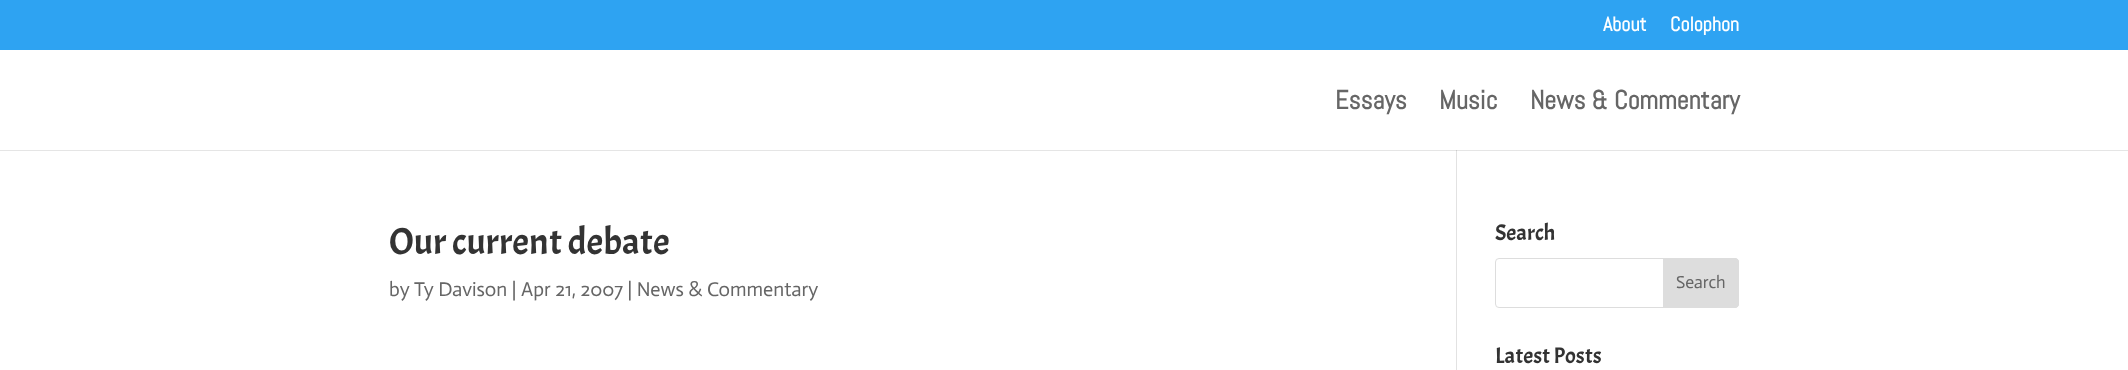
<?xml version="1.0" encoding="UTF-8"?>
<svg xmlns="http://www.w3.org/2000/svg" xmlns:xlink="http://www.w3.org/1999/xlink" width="2128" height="370">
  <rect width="100%" height="100%" fill="#ffffff" />
  <rect width="2128" height="50" fill="#2ea3f2" />
  <rect x="1456" y="150" width="1" height="220" fill="#e2e2e2" />
  <path d="M 0 150 v 1 h 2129 v -100 v 99 z" fill="#000000" fill-opacity="0.1" />
  <rect x="1495.5" y="258.5" width="243" height="49" rx="3.5" fill="none" stroke="#dddddd" />
  <path d="M 1663.5 258.5 h 71.5 c 2 0 3.5 1.5 3.5 3.5 v 42 c 0 2 -1.5 3.5 -3.5 3.5 h -71.5 z" fill="#dddddd" stroke="#dddddd" />
  <text x="1603" y="31" style="font-family: Abel; font-size: 20px; font-weight: bold; fill: #ffffff">About</text>
  <text x="1670" y="31" style="font-family: Abel; font-size: 20px; font-weight: bold; fill: #ffffff">Colophon</text>
  <text x="1335" y="109" style="font-family: Abel; font-size: 26.25px; font-weight: bold; fill: #666666">Essays</text>
  <text x="1439" y="109" style="font-family: Abel; font-size: 26.25px; font-weight: bold; fill: #666666">Music</text>
  <text x="1530" y="109" style="font-family: Abel; font-size: 26.25px; font-weight: bold; fill: #666666">News &amp; Commentary</text>
  <text x="389" y="254" style="font-family: Acme; font-size: 37.5px; fill: #333333">Our current debate</text>
  <text x="389" y="296" style="font-family: Actor; font-size: 20px; fill: #666666">by</text>
  <text x="414" y="296" style="font-family: Actor; font-size: 20px; fill: #666666">Ty Davison | Apr 21, 2007 | News &amp; Commentary</text>
  <text x="1495" y="240" style="font-family: Acme; font-size: 22.5px; fill: #333333">Search</text>
  <text x="1676" y="288" style="font-family: Actor; font-size: 17.5px; fill: #666666">Search</text>
  <text x="1495" y="363" style="font-family: Acme; font-size: 22.5px; fill: #333333">Latest Posts</text>
</svg>
